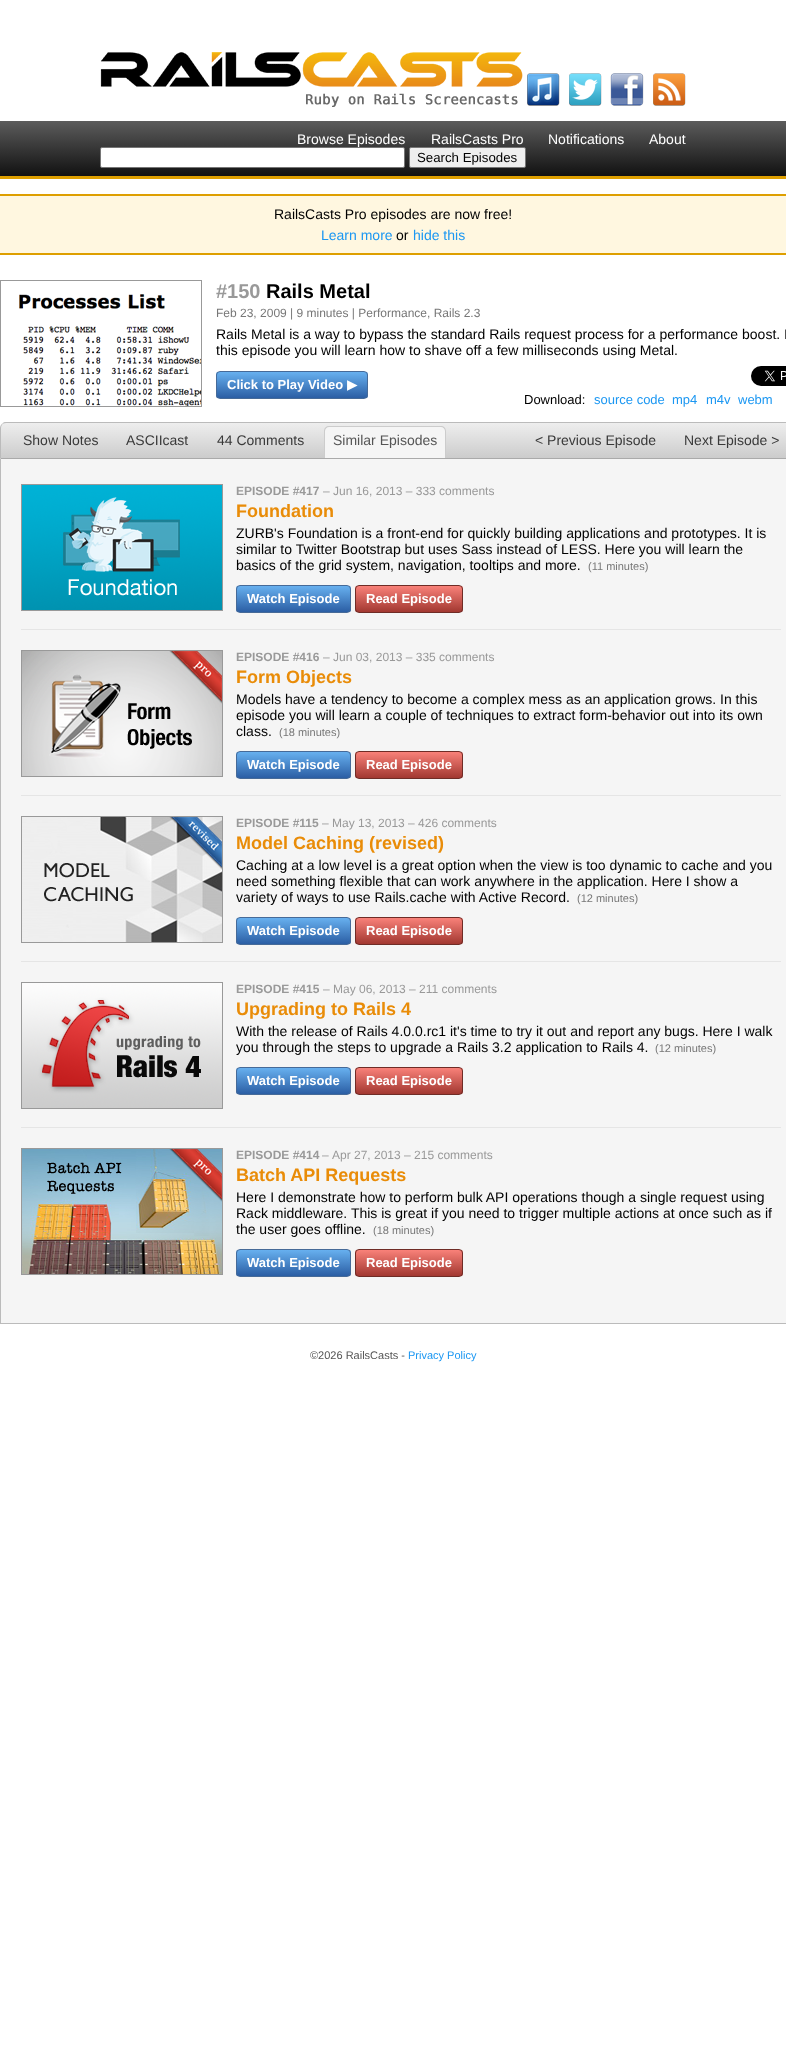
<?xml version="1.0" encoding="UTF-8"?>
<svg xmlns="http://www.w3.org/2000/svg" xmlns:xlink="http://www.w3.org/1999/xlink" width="786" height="2064">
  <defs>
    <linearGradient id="g1" gradientUnits="userSpaceOnUse" x1="0" y1="121" x2="0" y2="176"><stop offset="0" stop-color="#5c5c5c" /><stop offset="1" stop-color="#111111" /></linearGradient>
    <clipPath id="clip1"><rect x="216" y="371" width="152" height="28" rx="4" /></clipPath>
    <linearGradient id="g2" gradientUnits="userSpaceOnUse" x1="217" y1="372" x2="217" y2="398"><stop offset="0" stop-color="#67b0ef" /><stop offset="1" stop-color="#2b5ea4" /></linearGradient>
    <clipPath id="clip2"><path d="M 6 422 h 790 c 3.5 0 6 2.5 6 6 v 31 h -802 v -31 c 0 -3.5 2.5 -6 6 -6 z" /></clipPath>
    <linearGradient id="g3" gradientUnits="userSpaceOnUse" x1="1" y1="388" x2="1" y2="423"><stop offset="0" stop-color="#eeeeee" /><stop offset="1" stop-color="#cccccc" /></linearGradient>
    <linearGradient id="g4" gradientUnits="userSpaceOnUse" x1="1" y1="423" x2="1" y2="458"><stop offset="0" stop-color="#eeeeee" /><stop offset="1" stop-color="#cccccc" /></linearGradient>
    <clipPath id="clip3"><rect x="236" y="585" width="115" height="28" rx="4" /></clipPath>
    <linearGradient id="g5" gradientUnits="userSpaceOnUse" x1="237" y1="586" x2="237" y2="612"><stop offset="0" stop-color="#67b0ef" /><stop offset="1" stop-color="#2b5ea4" /></linearGradient>
    <clipPath id="clip4"><rect x="355" y="585" width="108" height="28" rx="4" /></clipPath>
    <linearGradient id="g6" gradientUnits="userSpaceOnUse" x1="356" y1="586" x2="356" y2="612"><stop offset="0" stop-color="#f98179" /><stop offset="1" stop-color="#a23831" /></linearGradient>
    <clipPath id="clip5"><rect x="236" y="751" width="115" height="28" rx="4" /></clipPath>
    <linearGradient id="g7" gradientUnits="userSpaceOnUse" x1="237" y1="752" x2="237" y2="778"><stop offset="0" stop-color="#67b0ef" /><stop offset="1" stop-color="#2b5ea4" /></linearGradient>
    <clipPath id="clip6"><rect x="355" y="751" width="108" height="28" rx="4" /></clipPath>
    <linearGradient id="g8" gradientUnits="userSpaceOnUse" x1="356" y1="752" x2="356" y2="778"><stop offset="0" stop-color="#f98179" /><stop offset="1" stop-color="#a23831" /></linearGradient>
    <clipPath id="clip7"><rect x="236" y="917" width="115" height="28" rx="4" /></clipPath>
    <linearGradient id="g9" gradientUnits="userSpaceOnUse" x1="237" y1="918" x2="237" y2="944"><stop offset="0" stop-color="#67b0ef" /><stop offset="1" stop-color="#2b5ea4" /></linearGradient>
    <clipPath id="clip8"><rect x="355" y="917" width="108" height="28" rx="4" /></clipPath>
    <linearGradient id="g10" gradientUnits="userSpaceOnUse" x1="356" y1="918" x2="356" y2="944"><stop offset="0" stop-color="#f98179" /><stop offset="1" stop-color="#a23831" /></linearGradient>
    <clipPath id="clip9"><rect x="236" y="1067" width="115" height="28" rx="4" /></clipPath>
    <linearGradient id="g11" gradientUnits="userSpaceOnUse" x1="237" y1="1068" x2="237" y2="1094"><stop offset="0" stop-color="#67b0ef" /><stop offset="1" stop-color="#2b5ea4" /></linearGradient>
    <clipPath id="clip10"><rect x="355" y="1067" width="108" height="28" rx="4" /></clipPath>
    <linearGradient id="g12" gradientUnits="userSpaceOnUse" x1="356" y1="1068" x2="356" y2="1094"><stop offset="0" stop-color="#f98179" /><stop offset="1" stop-color="#a23831" /></linearGradient>
    <clipPath id="clip11"><rect x="236" y="1249" width="115" height="28" rx="4" /></clipPath>
    <linearGradient id="g13" gradientUnits="userSpaceOnUse" x1="237" y1="1250" x2="237" y2="1276"><stop offset="0" stop-color="#67b0ef" /><stop offset="1" stop-color="#2b5ea4" /></linearGradient>
    <clipPath id="clip12"><rect x="355" y="1249" width="108" height="28" rx="4" /></clipPath>
    <linearGradient id="g14" gradientUnits="userSpaceOnUse" x1="356" y1="1250" x2="356" y2="1276"><stop offset="0" stop-color="#f98179" /><stop offset="1" stop-color="#a23831" /></linearGradient>
  </defs>
  <rect width="100%" height="100%" fill="#ffffff" />
  <image x="100" y="51" width="423" height="56" xlink:href="image1.png" />
  <image x="527" y="73" width="33" height="33" xlink:href="image2.png" />
  <image x="569" y="73" width="33" height="33" xlink:href="image3.png" />
  <image x="610" y="73" width="34" height="33" xlink:href="image4.png" />
  <image x="653" y="73" width="33" height="33" xlink:href="image5.png" />
  <rect y="121" width="786" height="55" fill="url(#g1)" />
  <rect y="176" width="786" height="3" fill="#de9f00" />
  <rect x="100.5" y="147.5" width="304" height="20" rx="1.5" fill="#ffffff" stroke="#767676" />
  <rect x="409.5" y="147.5" width="116" height="20" rx="1.5" fill="#efefef" stroke="#767676" />
  <rect y="196" width="786" height="57" fill="#fff7e0" />
  <rect y="194" width="786" height="2" fill="#de9f00" />
  <rect y="253" width="786" height="2" fill="#de9f00" />
  <rect x="0.5" y="280.5" width="201" height="126" fill="none" stroke="#999999" />
  <image x="19" y="294" width="182" height="112" xlink:href="image6.png" />
  <g clip-path="url(#clip1)">
    <rect x="216" y="372" width="152" height="26" fill="url(#g2)" />
  </g>
  <rect x="216.5" y="371.5" width="151" height="27" rx="3.5" fill="none" stroke="#466a98" />
  <image x="751" y="366" width="35" height="20" xlink:href="image7.png" />
  <g clip-path="url(#clip2)">
    <rect y="422" width="6" height="1" fill="url(#g3)" />
    <rect y="423" width="786" height="35" fill="url(#g4)" />
  </g>
  <path d="M 6 422 c -2 0 -3 1 -4 2 c 1 0 2 -1 4 -1 h 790 c 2 0 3 1 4 1 c -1 -1 -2 -2 -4 -2 z" fill="#bbbbbb" />
  <path d="M 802 459 l -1 -1 h -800 l -1 1 z" fill="#aaaaaa" />
  <path d="M 0 459 l 1 -1 v -30 c 0 -1.5 0.5 -3 1.5 -3.5 l -0.5 -0.5 c -1 1 -2 2.5 -2 4 z" fill="#bbbbbb" />
  <path d="M 329 426 h 112 c 3 0 5 2 5 5 v 27 h -122 v -27 c 0 -3 2 -5 5 -5 z" fill="#f5f5f5" />
  <path d="M 329 426 h 112 c 3 0 5 2 5 5 v 27 h -122 v -27 c 0 -3 2 -5 5 -5 z m 0 1 h 112 c 2 0 4 2 4 4 v 27 h -120 v -27 c 0 -2 2 -4 4 -4 z" fill="#cccccc" fill-rule="evenodd" />
  <rect x="1" y="459" width="785" height="864" fill="#f5f5f5" />
  <rect y="1323" width="786" height="1" fill="#bbbbbb" />
  <rect y="459" width="1" height="865" fill="#bbbbbb" />
  <rect x="21" y="629" width="760" height="1" fill="#e5e5e5" />
  <rect x="21.5" y="484.5" width="201" height="126" fill="none" stroke="#999999" />
  <image x="22" y="485" width="200" height="125" xlink:href="image8.png" />
  <g clip-path="url(#clip3)">
    <rect x="236" y="586" width="115" height="26" fill="url(#g5)" />
  </g>
  <rect x="236.5" y="585.5" width="114" height="27" rx="3.5" fill="none" stroke="#466a98" />
  <g clip-path="url(#clip4)">
    <rect x="355" y="586" width="108" height="26" fill="url(#g6)" />
  </g>
  <rect x="355.5" y="585.5" width="107" height="27" rx="3.5" fill="none" stroke="#6f2c26" />
  <rect x="21" y="795" width="760" height="1" fill="#e5e5e5" />
  <rect x="21.5" y="650.5" width="201" height="126" fill="none" stroke="#999999" />
  <image x="22" y="651" width="200" height="125" xlink:href="image9.png" />
  <g clip-path="url(#clip5)">
    <rect x="236" y="752" width="115" height="26" fill="url(#g7)" />
  </g>
  <rect x="236.5" y="751.5" width="114" height="27" rx="3.5" fill="none" stroke="#466a98" />
  <g clip-path="url(#clip6)">
    <rect x="355" y="752" width="108" height="26" fill="url(#g8)" />
  </g>
  <rect x="355.5" y="751.5" width="107" height="27" rx="3.5" fill="none" stroke="#6f2c26" />
  <rect x="21" y="961" width="760" height="1" fill="#e5e5e5" />
  <rect x="21.5" y="816.5" width="201" height="126" fill="none" stroke="#999999" />
  <image x="22" y="817" width="200" height="125" xlink:href="image10.png" />
  <g clip-path="url(#clip7)">
    <rect x="236" y="918" width="115" height="26" fill="url(#g9)" />
  </g>
  <rect x="236.5" y="917.5" width="114" height="27" rx="3.5" fill="none" stroke="#466a98" />
  <g clip-path="url(#clip8)">
    <rect x="355" y="918" width="108" height="26" fill="url(#g10)" />
  </g>
  <rect x="355.5" y="917.5" width="107" height="27" rx="3.5" fill="none" stroke="#6f2c26" />
  <rect x="21" y="1127" width="760" height="1" fill="#e5e5e5" />
  <rect x="21.5" y="982.5" width="201" height="126" fill="none" stroke="#999999" />
  <image x="22" y="983" width="200" height="125" xlink:href="image11.png" />
  <g clip-path="url(#clip9)">
    <rect x="236" y="1068" width="115" height="26" fill="url(#g11)" />
  </g>
  <rect x="236.5" y="1067.5" width="114" height="27" rx="3.5" fill="none" stroke="#466a98" />
  <g clip-path="url(#clip10)">
    <rect x="355" y="1068" width="108" height="26" fill="url(#g12)" />
  </g>
  <rect x="355.5" y="1067.5" width="107" height="27" rx="3.5" fill="none" stroke="#6f2c26" />
  <rect x="21.5" y="1148.5" width="201" height="126" fill="none" stroke="#999999" />
  <image x="22" y="1149" width="200" height="125" xlink:href="image12.png" />
  <g clip-path="url(#clip11)">
    <rect x="236" y="1250" width="115" height="26" fill="url(#g13)" />
  </g>
  <rect x="236.5" y="1249.5" width="114" height="27" rx="3.5" fill="none" stroke="#466a98" />
  <g clip-path="url(#clip12)">
    <rect x="355" y="1250" width="108" height="26" fill="url(#g14)" />
  </g>
  <rect x="355.5" y="1249.5" width="107" height="27" rx="3.5" fill="none" stroke="#6f2c26" />
  <text x="297" y="144" style="font-family: Liberation Sans; font-size: 14px; fill: #ffffff">Browse Episodes</text>
  <text x="431" y="144" style="font-family: Liberation Sans; font-size: 14px; fill: #ffffff">RailsCasts Pro</text>
  <text x="548" y="144" style="font-family: Liberation Sans; font-size: 14px; fill: #ffffff">Notifications</text>
  <text x="649" y="144" style="font-family: Liberation Sans; font-size: 14px; fill: #ffffff">About</text>
  <text x="417" y="162" style="font-family: Liberation Sans; font-size: 13.25px; fill: #000000">Search Episodes</text>
  <text x="274" y="219" style="font-family: Liberation Sans; font-size: 14px; fill: #000000">RailsCasts Pro episodes are now free!</text>
  <text x="321" y="240" style="font-family: Liberation Sans; font-size: 14px; fill: #1b97f2">Learn more</text>
  <text x="396" y="240" style="font-family: Liberation Sans; font-size: 14px; fill: #000000">or</text>
  <text x="413" y="240" style="font-family: Liberation Sans; font-size: 14px; fill: #1b97f2">hide this</text>
  <text x="216" y="298" style="font-family: Liberation Sans; font-size: 20px; font-weight: bold; fill: #999999">#150</text>
  <text x="266" y="298" style="font-family: Liberation Sans; font-size: 20px; font-weight: bold; fill: #000000">Rails Metal</text>
  <text x="216" y="317" style="font-family: Liberation Sans; font-size: 12px; fill: #777777">Feb 23, 2009 | 9 minutes | Performance, Rails 2.3</text>
  <text x="216" y="339" style="font-family: Liberation Sans; font-size: 14px; fill: #000000">Rails Metal is a way to bypass the standard Rails request process for a performance boost. I</text>
  <text x="216" y="355" style="font-family: Liberation Sans; font-size: 14px; fill: #000000">this episode you will learn how to shave off a few milliseconds using Metal.</text>
  <text x="227" y="389" style="font-family: Liberation Sans; font-size: 13px; font-weight: bold; fill: #ffffff">Click to Play Video</text>
  <text x="347" y="389" style="font-family: DejaVu Sans; font-size: 13px; font-weight: bold; fill: #ffffff">▶</text>
  <text x="524" y="404" style="font-family: Liberation Sans; font-size: 13px; fill: #000000">Download:</text>
  <text x="594" y="404" style="font-family: Liberation Sans; font-size: 13px; fill: #1b97f2">source code</text>
  <text x="672" y="404" style="font-family: Liberation Sans; font-size: 13px; fill: #1b97f2">mp4</text>
  <text x="706" y="404" style="font-family: Liberation Sans; font-size: 13px; fill: #1b97f2">m4v</text>
  <text x="738" y="404" style="font-family: Liberation Sans; font-size: 13px; fill: #1b97f2">webm</text>
  <text x="23" y="445" style="font-family: Liberation Sans; font-size: 14px; fill: #393939">Show Notes</text>
  <text x="126" y="445" style="font-family: Liberation Sans; font-size: 14px; fill: #393939">ASCIIcast</text>
  <text x="217" y="445" style="font-family: Liberation Sans; font-size: 14px; fill: #393939">44 Comments</text>
  <text x="333" y="445" style="font-family: Liberation Sans; font-size: 14px; fill: #555555">Similar Episodes</text>
  <text x="535" y="445" style="font-family: Liberation Sans; font-size: 14px; fill: #393939">&lt; Previous Episode</text>
  <text x="684" y="445" style="font-family: Liberation Sans; font-size: 14px; fill: #393939">Next Episode &gt;</text>
  <text x="236" y="495" style="font-family: Liberation Sans; font-size: 12px; font-weight: bold; fill: #999999">EPISODE #417</text>
  <text x="323" y="495" style="font-family: Liberation Sans; font-size: 12px; fill: #999999">– Jun 16, 2013 – 333 comments</text>
  <text x="236" y="517" style="font-family: Liberation Sans; font-size: 18px; font-weight: bold; fill: #e98c08">Foundation</text>
  <text x="236" y="538" style="font-family: Liberation Sans; font-size: 14px; fill: #000000">ZURB's Foundation is a front-end for quickly building applications and prototypes. It is</text>
  <text x="236" y="554" style="font-family: Liberation Sans; font-size: 14px; fill: #000000">similar to Twitter Bootstrap but uses Sass instead of LESS. Here you will learn the</text>
  <text x="236" y="570" style="font-family: Liberation Sans; font-size: 14px; fill: #000000">basics of the grid system, navigation, tooltips and more.</text>
  <text x="588" y="570" style="font-family: Liberation Sans; font-size: 11px; fill: #777777">(11 minutes)</text>
  <text x="247" y="603" style="font-family: Liberation Sans; font-size: 13px; font-weight: bold; fill: #ffffff">Watch Episode</text>
  <text x="366" y="603" style="font-family: Liberation Sans; font-size: 13px; font-weight: bold; fill: #ffffff">Read Episode</text>
  <text x="236" y="661" style="font-family: Liberation Sans; font-size: 12px; font-weight: bold; fill: #999999">EPISODE #416</text>
  <text x="323" y="661" style="font-family: Liberation Sans; font-size: 12px; fill: #999999">– Jun 03, 2013 – 335 comments</text>
  <text x="236" y="683" style="font-family: Liberation Sans; font-size: 18px; font-weight: bold; fill: #e98c08">Form Objects</text>
  <text x="236" y="704" style="font-family: Liberation Sans; font-size: 14px; fill: #000000">Models have a tendency to become a complex mess as an application grows. In this</text>
  <text x="236" y="720" style="font-family: Liberation Sans; font-size: 14px; fill: #000000">episode you will learn a couple of techniques to extract form-behavior out into its own</text>
  <text x="236" y="736" style="font-family: Liberation Sans; font-size: 14px; fill: #000000">class.</text>
  <text x="279" y="736" style="font-family: Liberation Sans; font-size: 11px; fill: #777777">(18 minutes)</text>
  <text x="247" y="769" style="font-family: Liberation Sans; font-size: 13px; font-weight: bold; fill: #ffffff">Watch Episode</text>
  <text x="366" y="769" style="font-family: Liberation Sans; font-size: 13px; font-weight: bold; fill: #ffffff">Read Episode</text>
  <text x="236" y="827" style="font-family: Liberation Sans; font-size: 12px; font-weight: bold; fill: #999999">EPISODE #115</text>
  <text x="322" y="827" style="font-family: Liberation Sans; font-size: 12px; fill: #999999">– May 13, 2013 – 426 comments</text>
  <text x="236" y="849" style="font-family: Liberation Sans; font-size: 18px; font-weight: bold; fill: #e98c08">Model Caching (revised)</text>
  <text x="236" y="870" style="font-family: Liberation Sans; font-size: 14px; fill: #000000">Caching at a low level is a great option when the view is too dynamic to cache and you</text>
  <text x="236" y="886" style="font-family: Liberation Sans; font-size: 14px; fill: #000000">need something flexible that can work anywhere in the application. Here I show a</text>
  <text x="236" y="902" style="font-family: Liberation Sans; font-size: 14px; fill: #000000">variety of ways to use Rails.cache with Active Record.</text>
  <text x="577" y="902" style="font-family: Liberation Sans; font-size: 11px; fill: #777777">(12 minutes)</text>
  <text x="247" y="935" style="font-family: Liberation Sans; font-size: 13px; font-weight: bold; fill: #ffffff">Watch Episode</text>
  <text x="366" y="935" style="font-family: Liberation Sans; font-size: 13px; font-weight: bold; fill: #ffffff">Read Episode</text>
  <text x="236" y="993" style="font-family: Liberation Sans; font-size: 12px; font-weight: bold; fill: #999999">EPISODE #415</text>
  <text x="323" y="993" style="font-family: Liberation Sans; font-size: 12px; fill: #999999">– May 06, 2013 – 211 comments</text>
  <text x="236" y="1015" style="font-family: Liberation Sans; font-size: 18px; font-weight: bold; fill: #e98c08">Upgrading to Rails 4</text>
  <text x="236" y="1036" style="font-family: Liberation Sans; font-size: 14px; fill: #000000">With the release of Rails 4.0.0.rc1 it's time to try it out and report any bugs. Here I walk</text>
  <text x="236" y="1052" style="font-family: Liberation Sans; font-size: 14px; fill: #000000">you through the steps to upgrade a Rails 3.2 application to Rails 4.</text>
  <text x="655" y="1052" style="font-family: Liberation Sans; font-size: 11px; fill: #777777">(12 minutes)</text>
  <text x="247" y="1085" style="font-family: Liberation Sans; font-size: 13px; font-weight: bold; fill: #ffffff">Watch Episode</text>
  <text x="366" y="1085" style="font-family: Liberation Sans; font-size: 13px; font-weight: bold; fill: #ffffff">Read Episode</text>
  <text x="236" y="1159" style="font-family: Liberation Sans; font-size: 12px; font-weight: bold; fill: #999999">EPISODE #414</text>
  <text x="322" y="1159" style="font-family: Liberation Sans; font-size: 12px; fill: #999999">–</text>
  <text x="332" y="1159" style="font-family: Liberation Sans; font-size: 12px; fill: #999999">Apr 27, 2013 – 215 comments</text>
  <text x="236" y="1181" style="font-family: Liberation Sans; font-size: 18px; font-weight: bold; fill: #e98c08">Batch API Requests</text>
  <text x="236" y="1202" style="font-family: Liberation Sans; font-size: 14px; fill: #000000">Here I demonstrate how to perform bulk API operations though a single request using</text>
  <text x="236" y="1218" style="font-family: Liberation Sans; font-size: 14px; fill: #000000">Rack middleware. This is great if you need to trigger multiple actions at once such as if</text>
  <text x="236" y="1234" style="font-family: Liberation Sans; font-size: 14px; fill: #000000">the user goes offline.</text>
  <text x="373" y="1234" style="font-family: Liberation Sans; font-size: 11px; fill: #777777">(18 minutes)</text>
  <text x="247" y="1267" style="font-family: Liberation Sans; font-size: 13px; font-weight: bold; fill: #ffffff">Watch Episode</text>
  <text x="366" y="1267" style="font-family: Liberation Sans; font-size: 13px; font-weight: bold; fill: #ffffff">Read Episode</text>
  <text x="310" y="1359" style="font-family: Liberation Sans; font-size: 11px; fill: #555555">©2026 RailsCasts -</text>
  <text x="408" y="1359" style="font-family: Liberation Sans; font-size: 11px; fill: #1b97f2">Privacy Policy</text>
</svg>
